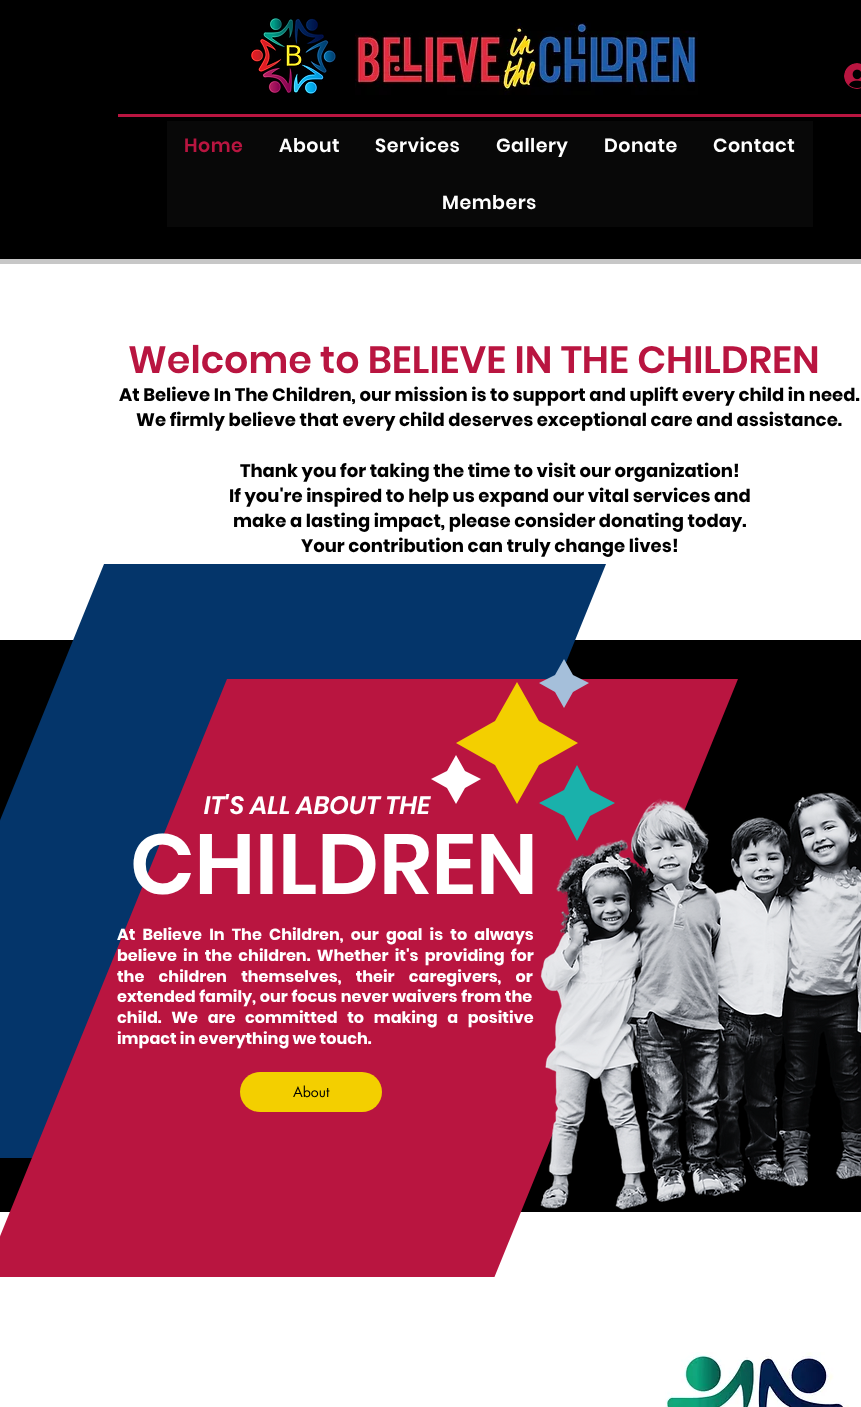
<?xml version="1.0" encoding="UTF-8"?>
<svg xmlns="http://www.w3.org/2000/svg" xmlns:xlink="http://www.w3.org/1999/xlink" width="861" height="1407">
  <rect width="100%" height="100%" fill="#000000" />
  <image x="844" y="63" width="17" height="26" xlink:href="image1.png" />
  <rect x="118" y="114" width="743" height="3" fill="#b91540" />
  <image x="251" y="18" width="85" height="78" xlink:href="image2.png" />
  <image x="355" y="22" width="343" height="73" xlink:href="image3.png" />
  <rect x="167" y="121" width="646" height="106" fill="#080808" />
  <rect y="259" width="861" height="5" fill="#c7c7c7" />
  <rect y="264" width="861" height="1013" fill="#ffffff" />
  <rect y="640" width="861" height="572" fill="#000000" />
  <path d="M 365 1158 h -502 l 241 -594 h 502 z" fill="#04356a" />
  <path d="M 492 1283 h -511 l 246 -604 h 511 z" fill="#b91540" />
  <path d="M 456 755 l 9 16 l 16 8 l -16 9 l -9 16 l -9 -16 l -16 -9 l 16 -8 z" fill="#ffffff" />
  <image x="540" y="792" width="321" height="418" xlink:href="image4.png" />
  <path d="M 517 682 l 22 39 l 39 22 l -39 22 l -22 39 l -22 -39 l -39 -22 l 39 -22 z" fill="#f3cf00" />
  <path d="M 564 659 l 9 16 l 16 8 l -16 9 l -9 16 l -9 -16 l -16 -9 l 16 -8 z" fill="#a5bfda" />
  <path d="M 577 765 l 13 25 l 25 13 l -25 13 l -13 25 l -13 -25 l -25 -13 l 25 -13 z" fill="#1ab1ab" />
  <rect x="240" y="1072" width="142" height="40" rx="20" fill="#f3cf00" />
  <rect y="1277" width="861" height="130" fill="#ffffff" />
  <image x="665" y="1352" width="184" height="55" xlink:href="image5.png" />
  <text x="184" y="152" style="font-family: Poppins; font-size: 19px; font-weight: 600; letter-spacing: 0.5px; fill: #b91540">Home</text>
  <text x="279" y="152" style="font-family: Poppins; font-size: 19px; font-weight: 600; letter-spacing: 0.5px; fill: #ffffff">About</text>
  <text x="375" y="152" style="font-family: Poppins; font-size: 19px; font-weight: 600; letter-spacing: 0.5px; fill: #ffffff">Services</text>
  <text x="496" y="152" style="font-family: Poppins; font-size: 19px; font-weight: 600; letter-spacing: 0.5px; fill: #ffffff">Gallery</text>
  <text x="604" y="152" style="font-family: Poppins; font-size: 19px; font-weight: 600; letter-spacing: 0.5px; fill: #ffffff">Donate</text>
  <text x="713" y="152" style="font-family: Poppins; font-size: 19px; font-weight: 600; letter-spacing: 0.5px; fill: #ffffff">Contact</text>
  <text x="442" y="209" style="font-family: Poppins; font-size: 19px; font-weight: 600; letter-spacing: 0.5px; fill: #ffffff">Members</text>
  <text x="128" y="373" style="font-family: Poppins; font-size: 38px; font-weight: 600; fill: #b91540">Welcome to BELIEVE IN THE CHILDREN</text>
  <text x="119" y="401" style="font-family: Poppins; font-size: 18px; font-weight: bold; fill: #000000">At Believe In The Children, our mission is to support and uplift every child in need.</text>
  <text x="136" y="426" style="font-family: Poppins; font-size: 18px; font-weight: bold; fill: #000000">We firmly believe that every child deserves exceptional care and assistance.</text>
  <text x="240" y="477" style="font-family: Poppins; font-size: 18px; font-weight: bold; fill: #000000">Thank you for taking the time to visit our organization!</text>
  <text x="229" y="502" style="font-family: Poppins; font-size: 18px; font-weight: bold; fill: #000000">If you're inspired to help us expand our vital services and</text>
  <text x="233" y="527" style="font-family: Poppins; font-size: 18px; font-weight: bold; fill: #000000">make a lasting impact, please consider donating today.</text>
  <text x="301" y="552" style="font-family: Poppins; font-size: 18px; font-weight: bold; fill: #000000">Your contribution can truly change lives!</text>
  <text x="204" y="814" style="font-family: Poppins; font-size: 25px; font-weight: 600; font-style: italic; fill: #ffffff">IT'S ALL ABOUT THE</text>
  <text x="130" y="894" style="font-family: Poppins; font-size: 85px; font-weight: 600; fill: #ffffff">CHILDREN</text>
  <text x="117" y="940" word-spacing="4" style="font-family: Poppins; font-size: 16px; font-weight: bold; fill: #ffffff">At Believe In The Children, our goal is to always</text>
  <text x="117" y="961" word-spacing="3" style="font-family: Poppins; font-size: 16px; font-weight: bold; fill: #ffffff">believe in the children. Whether it's providing for</text>
  <text x="117" y="982" word-spacing="11" style="font-family: Poppins; font-size: 16px; font-weight: bold; fill: #ffffff">the children themselves, their caregivers, or</text>
  <text x="117" y="1002" word-spacing="0.5" style="font-family: Poppins; font-size: 16px; font-weight: bold; fill: #ffffff">extended family, our focus never waivers from the</text>
  <text x="117" y="1023" word-spacing="6.5" style="font-family: Poppins; font-size: 16px; font-weight: bold; fill: #ffffff">child. We are committed to making a positive</text>
  <text x="117" y="1044" style="font-family: Poppins; font-size: 16px; font-weight: bold; fill: #ffffff">impact in everything we touch.</text>
  <text x="293" y="1097" style="font-family: futura; font-size: 14px; fill: #000000">About</text>
</svg>
